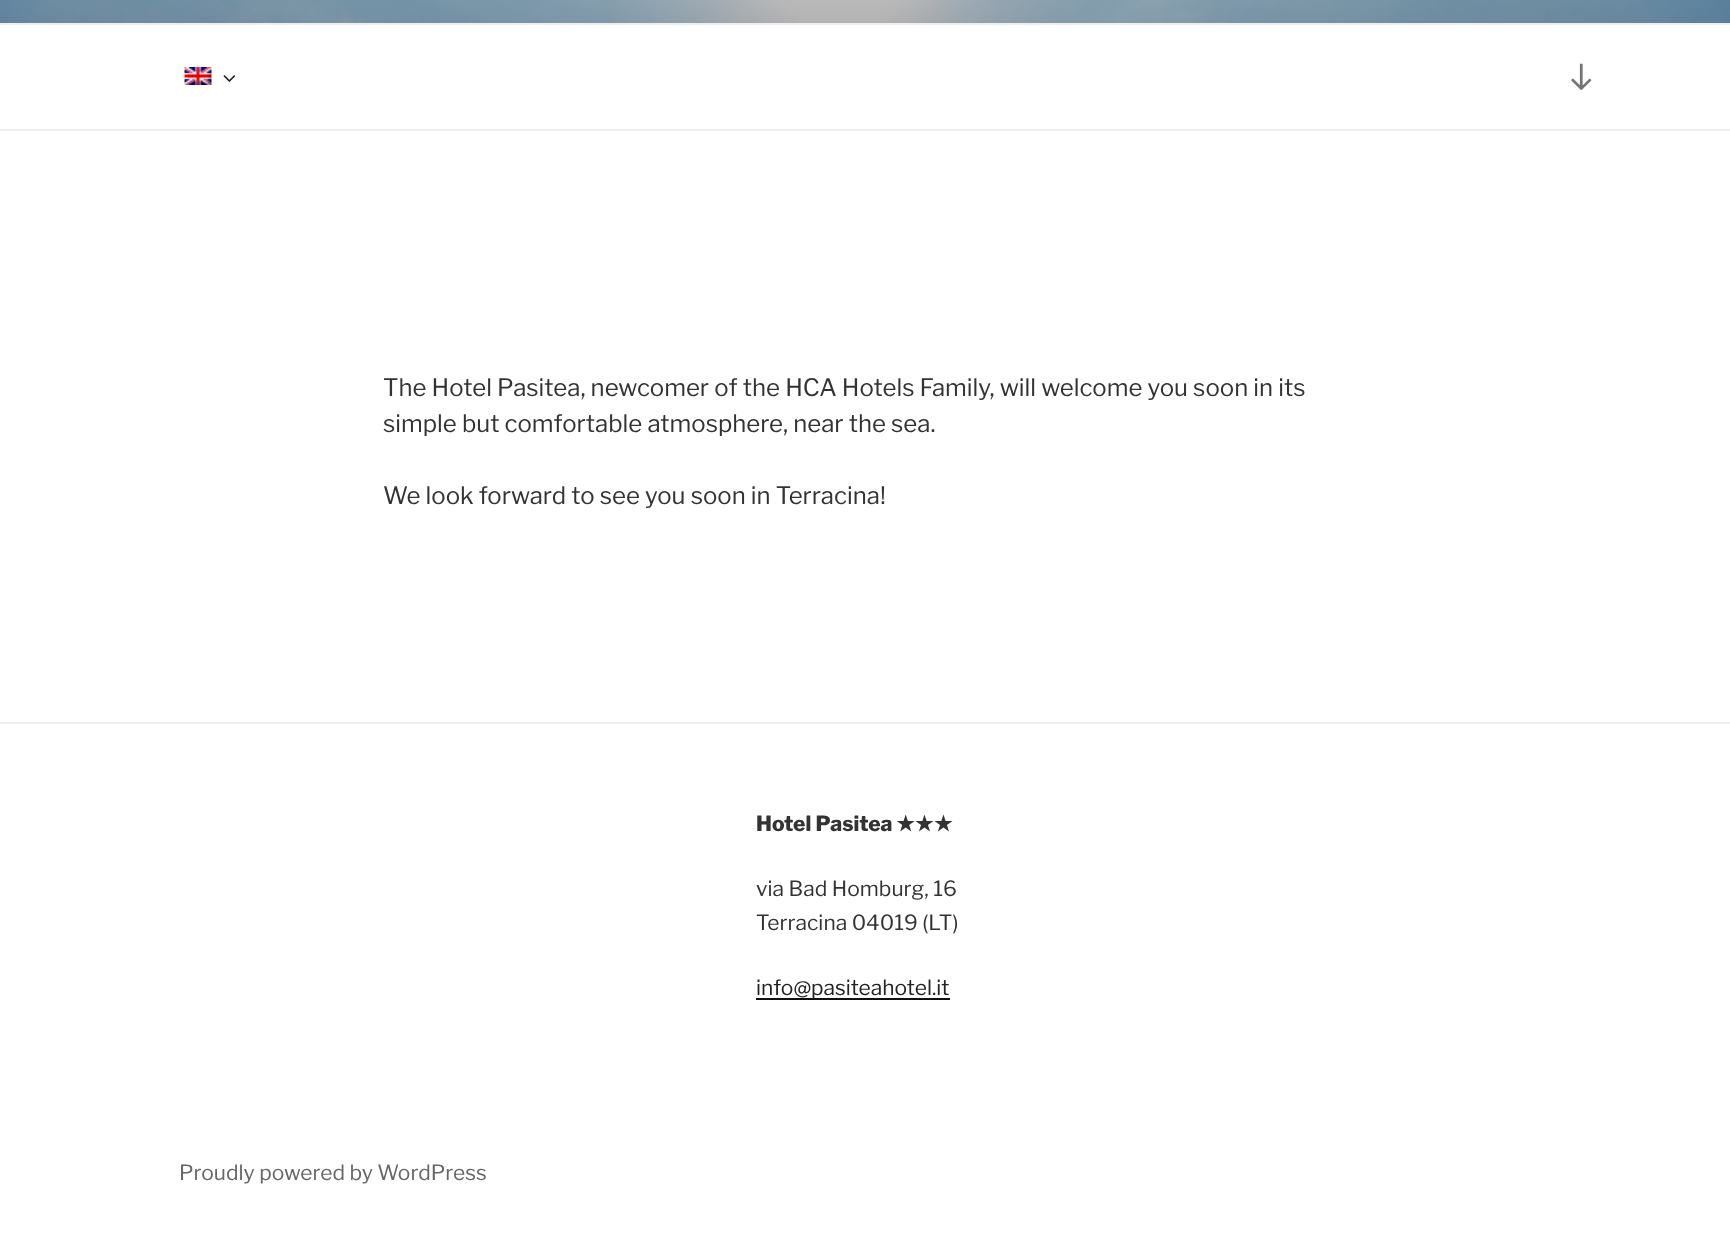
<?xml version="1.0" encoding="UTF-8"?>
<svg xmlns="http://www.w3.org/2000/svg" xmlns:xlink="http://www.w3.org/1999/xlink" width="1730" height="1242">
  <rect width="100%" height="100%" fill="#ffffff" />
  <image x="0" y="0" width="1730" height="23" xlink:href="image1.png" />
  <rect y="23" width="1730" height="2" fill="#eeeeee" />
  <rect y="129" width="1730" height="2" fill="#eeeeee" />
  <image x="184" y="67" width="28" height="18" xlink:href="image2.png" />
  <image x="223" y="75" width="13" height="7" xlink:href="image3.png" />
  <image x="1571" y="63" width="21" height="27" xlink:href="image4.png" />
  <rect y="722" width="1730" height="2" fill="#eeeeee" />
  <rect x="756" y="998" width="194" height="2" fill="#0f0f0f" />
  <text x="383" y="396" style="font-family: Libre Franklin; font-size: 24px; fill: #333333">The Hotel Pasitea, newcomer of the HCA Hotels Family, will welcome you soon in its</text>
  <text x="383" y="432" style="font-family: Libre Franklin; font-size: 24px; fill: #333333">simple but comfortable atmosphere, near the sea.</text>
  <text x="383" y="504" style="font-family: Libre Franklin; font-size: 24px; fill: #333333">We look forward to see you soon in Terracina!</text>
  <text x="756" y="831" style="font-family: Libre Franklin; font-size: 21px; font-weight: 800; fill: #333333">Hotel Pasitea</text>
  <text x="896" y="831" style="font-family: DejaVu Sans; font-size: 21px; font-weight: bold; fill: #333333">★★★</text>
  <text x="756" y="896" style="font-family: Libre Franklin; font-size: 21px; fill: #333333">via Bad Homburg, 16</text>
  <text x="756" y="930" style="font-family: Libre Franklin; font-size: 21px; fill: #333333">Terracina 04019 (LT)</text>
  <text x="756" y="995" style="font-family: Libre Franklin; font-size: 21px; fill: #222222">info@pasiteahotel.it</text>
  <text x="179" y="1180" style="font-family: Libre Franklin; font-size: 21px; fill: #666666">Proudly powered by WordPress</text>
</svg>
